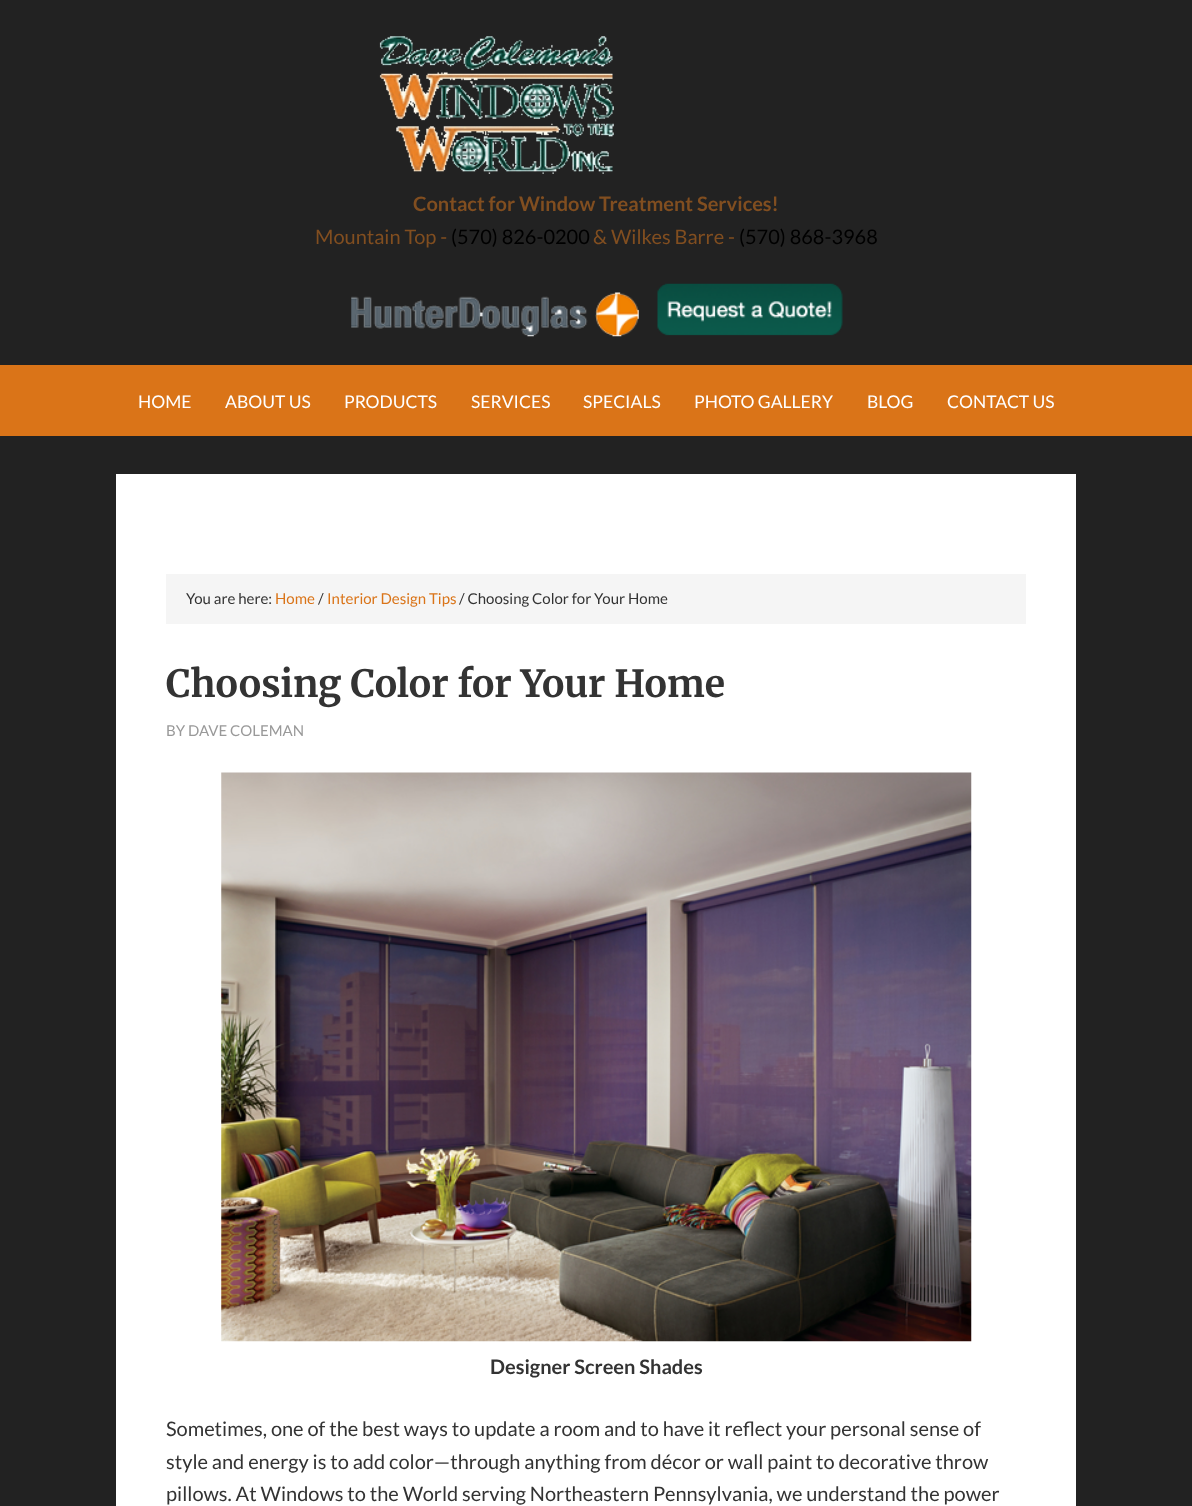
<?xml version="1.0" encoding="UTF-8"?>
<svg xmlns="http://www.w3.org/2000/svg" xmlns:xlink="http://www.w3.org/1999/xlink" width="1192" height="1506">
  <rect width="100%" height="100%" fill="#222222" />
  <image x="379" y="36" width="235" height="138" xlink:href="image1.png" />
  <image x="351" y="292" width="288" height="45" xlink:href="image2.png" />
  <image x="657" y="283" width="186" height="53" xlink:href="image3.png" />
  <rect y="365" width="1192" height="71" fill="#da7418" />
  <rect x="116" y="474" width="960" height="1032" fill="#ffffff" />
  <rect x="166" y="574" width="860" height="50" fill="#f5f5f5" />
  <image x="221" y="772" width="751" height="570" xlink:href="image4.png" />
  <text x="413" y="211" style="font-family: Lato; font-size: 20px; font-weight: bold; fill: #814e20">Contact for Window Treatment Services!</text>
  <text x="315" y="244" style="font-family: Lato; font-size: 20px; fill: #814e20">Mountain Top -</text>
  <text x="451" y="244" style="font-family: Lato; font-size: 20px; fill: #000000">(570) 826-0200</text>
  <text x="593" y="244" style="font-family: Lato; font-size: 20px; fill: #814e20">&amp; Wilkes Barre -</text>
  <text x="739" y="244" style="font-family: Lato; font-size: 20px; fill: #000000">(570) 868-3968</text>
  <text x="138" y="408" style="font-family: Lato; font-size: 17.5px; fill: #ffffff">HOME</text>
  <text x="225" y="408" style="font-family: Lato; font-size: 17.5px; fill: #ffffff">ABOUT US</text>
  <text x="344" y="408" style="font-family: Lato; font-size: 17.5px; fill: #ffffff">PRODUCTS</text>
  <text x="471" y="408" style="font-family: Lato; font-size: 17.5px; fill: #ffffff">SERVICES</text>
  <text x="583" y="408" style="font-family: Lato; font-size: 17.5px; fill: #ffffff">SPECIALS</text>
  <text x="694" y="408" style="font-family: Lato; font-size: 17.5px; fill: #ffffff">PHOTO GALLERY</text>
  <text x="867" y="408" style="font-family: Lato; font-size: 17.5px; fill: #ffffff">BLOG</text>
  <text x="947" y="408" style="font-family: Lato; font-size: 17.5px; fill: #ffffff">CONTACT US</text>
  <text x="186" y="604" style="font-family: Lato; font-size: 15px; fill: #333333">You are here:</text>
  <text x="275" y="604" style="font-family: Lato; font-size: 15px; fill: #da7418">Home</text>
  <text x="318" y="604" style="font-family: Lato; font-size: 15px; fill: #333333">/</text>
  <text x="327" y="604" style="font-family: Lato; font-size: 15px; fill: #da7418">Interior Design Tips</text>
  <text x="459" y="604" style="font-family: Lato; font-size: 15px; fill: #333333">/ Choosing Color for Your Home</text>
  <text x="166" y="697" style="font-family: Merriweather; font-size: 37.5px; font-weight: bold; fill: #333333">Choosing Color for Your Home</text>
  <text x="166" y="736" style="font-family: Lato; font-size: 15px; fill: #999999">BY DAVE COLEMAN</text>
  <text x="490" y="1374" style="font-family: Lato; font-size: 20px; font-weight: bold; fill: #333333">Designer Screen Shades</text>
  <text x="166" y="1436" style="font-family: Lato; font-size: 20px; fill: #333333">Sometimes, one of the best ways to update a room and to have it reflect your personal sense of</text>
  <text x="166" y="1469" style="font-family: Lato; font-size: 20px; fill: #333333">style and energy is to add color—through anything from décor or wall paint to decorative throw</text>
  <text x="166" y="1501" style="font-family: Lato; font-size: 20px; fill: #333333">pillows. At Windows to the World serving Northeastern Pennsylvania, we understand the power</text>
</svg>
